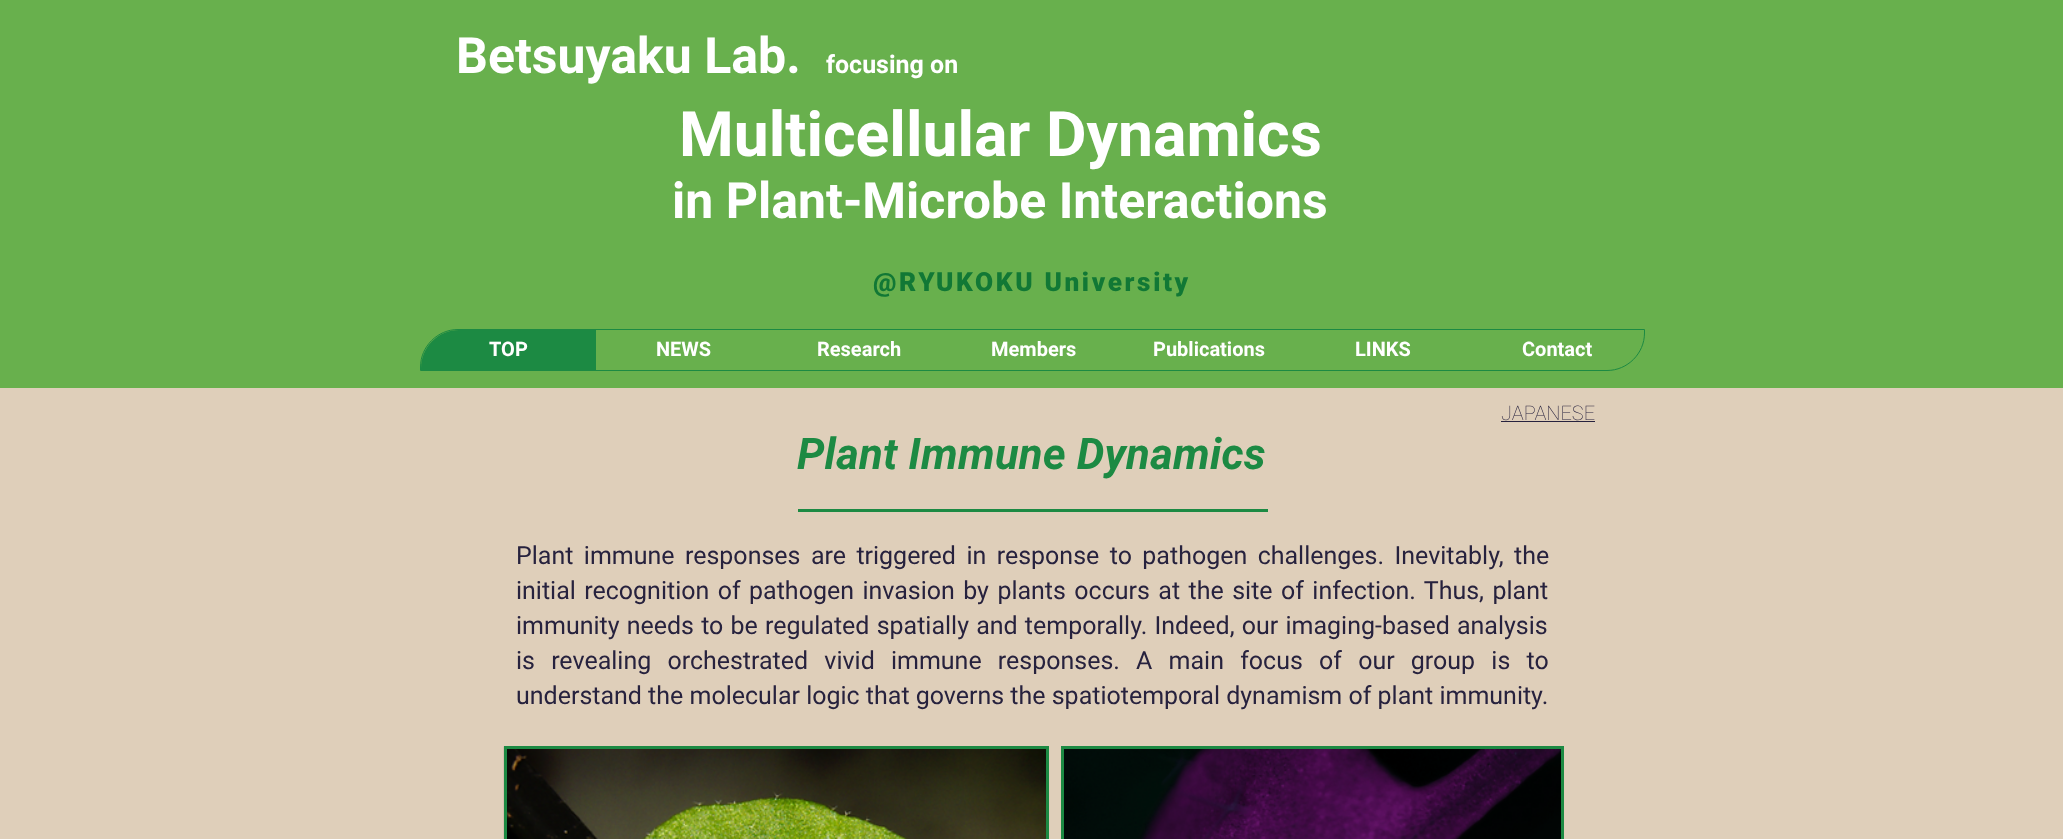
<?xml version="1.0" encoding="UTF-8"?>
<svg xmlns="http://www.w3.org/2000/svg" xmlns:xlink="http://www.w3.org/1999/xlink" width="2063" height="839">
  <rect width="100%" height="100%" fill="#68b04d" />
  <path d="M 458 329.5 h 1186.5 v 3.5 c 0 20.5 -17 37.5 -37.5 37.5 h -1186.5 v -3.5 c 0 -20.5 17 -37.5 37.5 -37.5 z" fill="none" stroke="#1c8a43" />
  <path d="M 459 330 h 137 v 40 h -175 v -2 c 0 -21 17 -38 38 -38 z" fill="#1c8a43" />
  <rect y="388" width="2063" height="451" fill="#dfcfba" />
  <rect x="1501" y="421" width="94" height="1" fill="#27223e" />
  <rect x="798" y="509" width="470" height="3" fill="#1c8a43" />
  <image x="503" y="746" width="543" height="93" xlink:href="image1.png" />
  <rect x="505.5" y="747.5" width="542" height="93" fill="none" stroke="#1c8a43" stroke-width="3" />
  <image x="1064" y="749" width="497" height="90" xlink:href="image2.png" />
  <rect x="1062.5" y="747.5" width="500" height="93" fill="none" stroke="#1c8a43" stroke-width="3" />
  <text x="456" y="73" style="font-family: Roboto; font-size: 50px; font-weight: bold; fill: #ffffff">Betsuyaku Lab.</text>
  <text x="826" y="73" style="font-family: Roboto; font-size: 25px; font-weight: bold; fill: #ffffff">focusing on</text>
  <text x="679" y="156" style="font-family: Roboto; font-size: 62.5px; font-weight: bold; fill: #ffffff">Multicellular Dynamics</text>
  <text x="672" y="218" style="font-family: Roboto; font-size: 50px; font-weight: bold; fill: #ffffff">in Plant-Microbe Interactions</text>
  <text x="873" y="291" style="font-family: Roboto; font-size: 26.25px; font-weight: 900; letter-spacing: 2.6px; fill: #117835">@RYUKOKU University</text>
  <text x="489" y="356" style="font-family: Roboto; font-size: 20px; font-weight: bold; fill: #ffffff">TOP</text>
  <text x="656" y="356" style="font-family: Roboto; font-size: 20px; font-weight: bold; fill: #ffffff">NEWS</text>
  <text x="817" y="356" style="font-family: Roboto; font-size: 20px; font-weight: bold; fill: #ffffff">Research</text>
  <text x="991" y="356" style="font-family: Roboto; font-size: 20px; font-weight: bold; fill: #ffffff">Members</text>
  <text x="1153" y="356" style="font-family: Roboto; font-size: 20px; font-weight: bold; fill: #ffffff">Publications</text>
  <text x="1355" y="356" style="font-family: Roboto; font-size: 20px; font-weight: bold; fill: #ffffff">LINKS</text>
  <text x="1522" y="356" style="font-family: Roboto; font-size: 20px; font-weight: bold; fill: #ffffff">Contact</text>
  <text x="1501" y="420" style="font-family: Roboto; font-size: 20px; font-weight: 100; fill: #27223e">JAPANESE</text>
  <text x="797" y="469" style="font-family: Roboto; font-size: 43.75px; font-weight: bold; font-style: italic; fill: #1c8a43">Plant Immune Dynamics</text>
  <text x="516" y="564" word-spacing="4.25" style="font-family: Roboto; font-size: 25px; fill: #27223e">Plant immune responses are triggered in response to pathogen challenges. Inevitably, the</text>
  <text x="516" y="599" word-spacing="2.25" style="font-family: Roboto; font-size: 25px; fill: #27223e">initial recognition of pathogen invasion by plants occurs at the site of infection. Thus, plant</text>
  <text x="516" y="634" word-spacing="1" style="font-family: Roboto; font-size: 25px; fill: #27223e">immunity needs to be regulated spatially and temporally. Indeed, our imaging-based analysis</text>
  <text x="516" y="669" word-spacing="10" style="font-family: Roboto; font-size: 25px; fill: #27223e">is revealing orchestrated vivid immune responses. A main focus of our group is to</text>
  <text x="516" y="704" style="font-family: Roboto; font-size: 25px; fill: #27223e">understand the molecular logic that governs the spatiotemporal dynamism of plant immunity.</text>
</svg>
